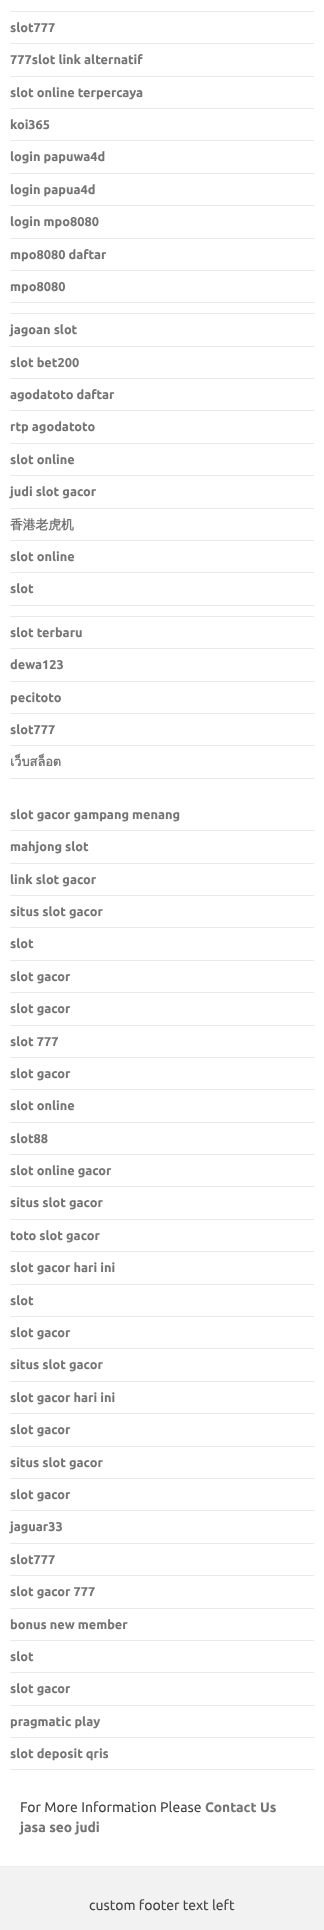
<?xml version="1.0" encoding="UTF-8"?>
<svg xmlns="http://www.w3.org/2000/svg" xmlns:xlink="http://www.w3.org/1999/xlink" width="324" height="1930">
  <rect width="100%" height="100%" fill="#ffffff" />
  <rect x="10" y="11" width="304" height="1" fill="#e9e9e9" />
  <rect x="10" y="43" width="304" height="1" fill="#e9e9e9" />
  <rect x="10" y="76" width="304" height="1" fill="#e9e9e9" />
  <rect x="10" y="108" width="304" height="1" fill="#e9e9e9" />
  <rect x="10" y="140" width="304" height="1" fill="#e9e9e9" />
  <rect x="10" y="173" width="304" height="1" fill="#e9e9e9" />
  <rect x="10" y="205" width="304" height="1" fill="#e9e9e9" />
  <rect x="10" y="238" width="304" height="1" fill="#e9e9e9" />
  <rect x="10" y="270" width="304" height="1" fill="#e9e9e9" />
  <rect x="10" y="302" width="304" height="1" fill="#e9e9e9" />
  <rect x="10" y="313" width="304" height="1" fill="#e9e9e9" />
  <rect x="10" y="346" width="304" height="1" fill="#e9e9e9" />
  <rect x="10" y="378" width="304" height="1" fill="#e9e9e9" />
  <rect x="10" y="410" width="304" height="1" fill="#e9e9e9" />
  <rect x="10" y="443" width="304" height="1" fill="#e9e9e9" />
  <rect x="10" y="475" width="304" height="1" fill="#e9e9e9" />
  <rect x="10" y="508" width="304" height="1" fill="#e9e9e9" />
  <rect x="10" y="540" width="304" height="1" fill="#e9e9e9" />
  <rect x="10" y="572" width="304" height="1" fill="#e9e9e9" />
  <rect x="10" y="605" width="304" height="1" fill="#e9e9e9" />
  <rect x="10" y="616" width="304" height="1" fill="#e9e9e9" />
  <rect x="10" y="648" width="304" height="1" fill="#e9e9e9" />
  <rect x="10" y="681" width="304" height="1" fill="#e9e9e9" />
  <rect x="10" y="713" width="304" height="1" fill="#e9e9e9" />
  <rect x="10" y="745" width="304" height="1" fill="#e9e9e9" />
  <rect x="10" y="778" width="304" height="1" fill="#e9e9e9" />
  <rect x="10" y="830" width="304" height="1" fill="#e9e9e9" />
  <rect x="10" y="863" width="304" height="1" fill="#e9e9e9" />
  <rect x="10" y="895" width="304" height="1" fill="#e9e9e9" />
  <rect x="10" y="927" width="304" height="1" fill="#e9e9e9" />
  <rect x="10" y="960" width="304" height="1" fill="#e9e9e9" />
  <rect x="10" y="992" width="304" height="1" fill="#e9e9e9" />
  <rect x="10" y="1025" width="304" height="1" fill="#e9e9e9" />
  <rect x="10" y="1057" width="304" height="1" fill="#e9e9e9" />
  <rect x="10" y="1089" width="304" height="1" fill="#e9e9e9" />
  <rect x="10" y="1122" width="304" height="1" fill="#e9e9e9" />
  <rect x="10" y="1154" width="304" height="1" fill="#e9e9e9" />
  <rect x="10" y="1186" width="304" height="1" fill="#e9e9e9" />
  <rect x="10" y="1219" width="304" height="1" fill="#e9e9e9" />
  <rect x="10" y="1251" width="304" height="1" fill="#e9e9e9" />
  <rect x="10" y="1284" width="304" height="1" fill="#e9e9e9" />
  <rect x="10" y="1316" width="304" height="1" fill="#e9e9e9" />
  <rect x="10" y="1348" width="304" height="1" fill="#e9e9e9" />
  <rect x="10" y="1381" width="304" height="1" fill="#e9e9e9" />
  <rect x="10" y="1413" width="304" height="1" fill="#e9e9e9" />
  <rect x="10" y="1446" width="304" height="1" fill="#e9e9e9" />
  <rect x="10" y="1478" width="304" height="1" fill="#e9e9e9" />
  <rect x="10" y="1510" width="304" height="1" fill="#e9e9e9" />
  <rect x="10" y="1543" width="304" height="1" fill="#e9e9e9" />
  <rect x="10" y="1575" width="304" height="1" fill="#e9e9e9" />
  <rect x="10" y="1608" width="304" height="1" fill="#e9e9e9" />
  <rect x="10" y="1640" width="304" height="1" fill="#e9e9e9" />
  <rect x="10" y="1672" width="304" height="1" fill="#e9e9e9" />
  <rect x="10" y="1705" width="304" height="1" fill="#e9e9e9" />
  <rect x="10" y="1737" width="304" height="1" fill="#e9e9e9" />
  <rect x="10" y="1769" width="304" height="1" fill="#e9e9e9" />
  <rect y="1867" width="324" height="63" fill="#f2f2f2" />
  <rect y="1866" width="324" height="1" fill="#ededed" />
  <text x="10" y="32" style="font-family: Ubuntu; font-size: 12.75px; font-weight: bold; fill: #757575">slot777</text>
  <text x="10" y="64" style="font-family: Ubuntu; font-size: 12.75px; font-weight: bold; fill: #757575">777slot link alternatif</text>
  <text x="10" y="97" style="font-family: Ubuntu; font-size: 12.75px; font-weight: bold; fill: #757575">slot online terpercaya</text>
  <text x="10" y="129" style="font-family: Ubuntu; font-size: 12.75px; font-weight: bold; fill: #757575">koi365</text>
  <text x="10" y="161" style="font-family: Ubuntu; font-size: 12.75px; font-weight: bold; fill: #757575">login papuwa4d</text>
  <text x="10" y="194" style="font-family: Ubuntu; font-size: 12.75px; font-weight: bold; fill: #757575">login papua4d</text>
  <text x="10" y="226" style="font-family: Ubuntu; font-size: 12.75px; font-weight: bold; fill: #757575">login mpo8080</text>
  <text x="10" y="259" style="font-family: Ubuntu; font-size: 12.75px; font-weight: bold; fill: #757575">mpo8080 daftar</text>
  <text x="10" y="291" style="font-family: Ubuntu; font-size: 12.75px; font-weight: bold; fill: #757575">mpo8080</text>
  <text x="10" y="334" style="font-family: Ubuntu; font-size: 12.75px; font-weight: bold; fill: #757575">jagoan slot</text>
  <text x="10" y="367" style="font-family: Ubuntu; font-size: 12.75px; font-weight: bold; fill: #757575">slot bet200</text>
  <text x="10" y="399" style="font-family: Ubuntu; font-size: 12.75px; font-weight: bold; fill: #757575">agodatoto daftar</text>
  <text x="10" y="431" style="font-family: Ubuntu; font-size: 12.75px; font-weight: bold; fill: #757575">rtp agodatoto</text>
  <text x="10" y="464" style="font-family: Ubuntu; font-size: 12.75px; font-weight: bold; fill: #757575">slot online</text>
  <text x="10" y="496" style="font-family: Ubuntu; font-size: 12.75px; font-weight: bold; fill: #757575">judi slot gacor</text>
  <text x="10" y="529" style="font-family: WenQuanYi Zen Hei; font-size: 12.75px; font-weight: bold; fill: #757575">香港老虎机</text>
  <text x="10" y="561" style="font-family: Ubuntu; font-size: 12.75px; font-weight: bold; fill: #757575">slot online</text>
  <text x="10" y="593" style="font-family: Ubuntu; font-size: 12.75px; font-weight: bold; fill: #757575">slot</text>
  <text x="10" y="637" style="font-family: Ubuntu; font-size: 12.75px; font-weight: bold; fill: #757575">slot terbaru</text>
  <text x="10" y="669" style="font-family: Ubuntu; font-size: 12.75px; font-weight: bold; fill: #757575">dewa123</text>
  <text x="10" y="702" style="font-family: Ubuntu; font-size: 12.75px; font-weight: bold; fill: #757575">pecitoto</text>
  <text x="10" y="734" style="font-family: Ubuntu; font-size: 12.75px; font-weight: bold; fill: #757575">slot777</text>
  <text x="10" y="766" style="font-family: Loma; font-size: 12.75px; font-weight: bold; fill: #757575">เว็บสล็อต</text>
  <text x="10" y="819" style="font-family: Ubuntu; font-size: 12.75px; font-weight: bold; fill: #757575">slot gacor gampang menang</text>
  <text x="10" y="851" style="font-family: Ubuntu; font-size: 12.75px; font-weight: bold; fill: #757575">mahjong slot</text>
  <text x="10" y="884" style="font-family: Ubuntu; font-size: 12.75px; font-weight: bold; fill: #757575">link slot gacor</text>
  <text x="10" y="916" style="font-family: Ubuntu; font-size: 12.75px; font-weight: bold; fill: #757575">situs slot gacor</text>
  <text x="10" y="948" style="font-family: Ubuntu; font-size: 12.75px; font-weight: bold; fill: #757575">slot</text>
  <text x="10" y="981" style="font-family: Ubuntu; font-size: 12.75px; font-weight: bold; fill: #757575">slot gacor</text>
  <text x="10" y="1013" style="font-family: Ubuntu; font-size: 12.75px; font-weight: bold; fill: #757575">slot gacor</text>
  <text x="10" y="1046" style="font-family: Ubuntu; font-size: 12.75px; font-weight: bold; fill: #757575">slot 777</text>
  <text x="10" y="1078" style="font-family: Ubuntu; font-size: 12.75px; font-weight: bold; fill: #757575">slot gacor</text>
  <text x="10" y="1110" style="font-family: Ubuntu; font-size: 12.75px; font-weight: bold; fill: #757575">slot online</text>
  <text x="10" y="1143" style="font-family: Ubuntu; font-size: 12.75px; font-weight: bold; fill: #757575">slot88</text>
  <text x="10" y="1175" style="font-family: Ubuntu; font-size: 12.75px; font-weight: bold; fill: #757575">slot online gacor</text>
  <text x="10" y="1207" style="font-family: Ubuntu; font-size: 12.75px; font-weight: bold; fill: #757575">situs slot gacor</text>
  <text x="10" y="1240" style="font-family: Ubuntu; font-size: 12.75px; font-weight: bold; fill: #757575">toto slot gacor</text>
  <text x="10" y="1272" style="font-family: Ubuntu; font-size: 12.75px; font-weight: bold; fill: #757575">slot gacor hari ini</text>
  <text x="10" y="1305" style="font-family: Ubuntu; font-size: 12.75px; font-weight: bold; fill: #757575">slot</text>
  <text x="10" y="1337" style="font-family: Ubuntu; font-size: 12.75px; font-weight: bold; fill: #757575">slot gacor</text>
  <text x="10" y="1369" style="font-family: Ubuntu; font-size: 12.75px; font-weight: bold; fill: #757575">situs slot gacor</text>
  <text x="10" y="1402" style="font-family: Ubuntu; font-size: 12.75px; font-weight: bold; fill: #757575">slot gacor hari ini</text>
  <text x="10" y="1434" style="font-family: Ubuntu; font-size: 12.75px; font-weight: bold; fill: #757575">slot gacor</text>
  <text x="10" y="1467" style="font-family: Ubuntu; font-size: 12.75px; font-weight: bold; fill: #757575">situs slot gacor</text>
  <text x="10" y="1499" style="font-family: Ubuntu; font-size: 12.75px; font-weight: bold; fill: #757575">slot gacor</text>
  <text x="10" y="1531" style="font-family: Ubuntu; font-size: 12.75px; font-weight: bold; fill: #757575">jaguar33</text>
  <text x="10" y="1564" style="font-family: Ubuntu; font-size: 12.75px; font-weight: bold; fill: #757575">slot777</text>
  <text x="10" y="1596" style="font-family: Ubuntu; font-size: 12.75px; font-weight: bold; fill: #757575">slot gacor 777</text>
  <text x="10" y="1629" style="font-family: Ubuntu; font-size: 12.75px; font-weight: bold; fill: #757575">bonus new member</text>
  <text x="10" y="1661" style="font-family: Ubuntu; font-size: 12.75px; font-weight: bold; fill: #757575">slot</text>
  <text x="10" y="1693" style="font-family: Ubuntu; font-size: 12.75px; font-weight: bold; fill: #757575">slot gacor</text>
  <text x="10" y="1726" style="font-family: Ubuntu; font-size: 12.75px; font-weight: bold; fill: #757575">pragmatic play</text>
  <text x="10" y="1758" style="font-family: Ubuntu; font-size: 12.75px; font-weight: bold; fill: #757575">slot deposit qris</text>
  <text x="20" y="1812" style="font-family: Ubuntu; font-size: 14px; fill: #444444">For More Information Please</text>
  <text x="205" y="1812" style="font-family: Ubuntu; font-size: 13.75px; font-weight: bold; fill: #757575">Contact Us</text>
  <text x="20" y="1832" style="font-family: Ubuntu; font-size: 13.75px; font-weight: bold; fill: #757575">jasa seo judi</text>
  <text x="89" y="1910" style="font-family: Ubuntu; font-size: 14px; fill: #444444">custom footer text left</text>
</svg>
